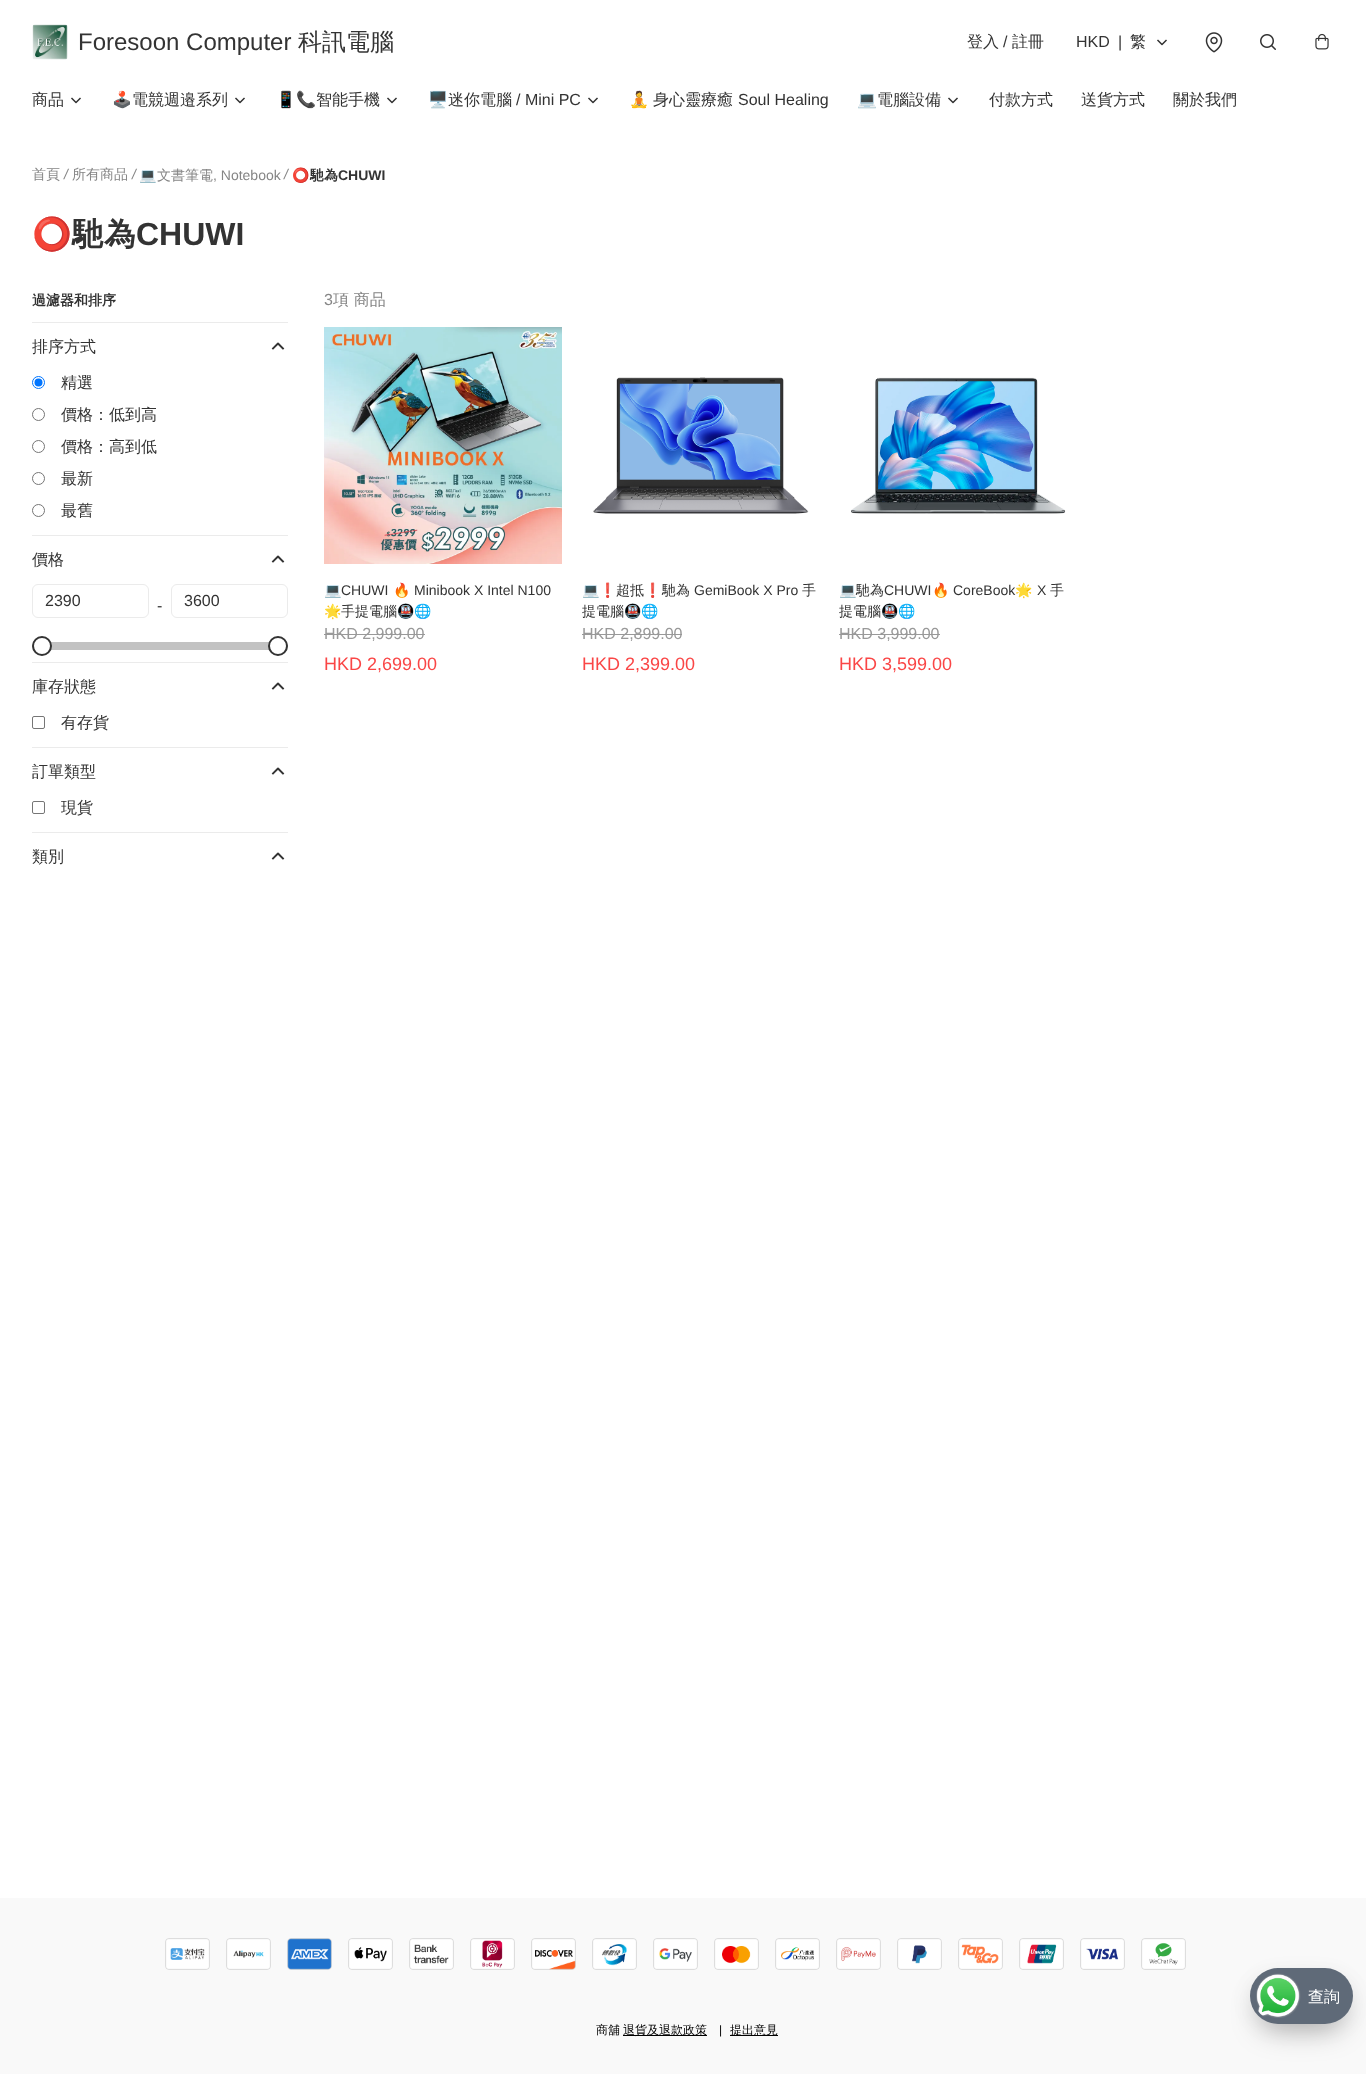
<?xml version="1.0" encoding="UTF-8"?>
<svg xmlns="http://www.w3.org/2000/svg" xmlns:xlink="http://www.w3.org/1999/xlink" width="1366" height="2074">
  <defs>
    <clipPath id="clip1"><rect x="582" y="580" width="237" height="42" /></clipPath>
  </defs>
  <rect width="100%" height="100%" fill="#ffffff" />
  <image x="32" y="24" width="36" height="36" xlink:href="image1.png" />
  <path d="M 1158 40.5 l 4 4 l 4 -4" fill="none" stroke="#333333" stroke-width="1.5" stroke-linecap="square" stroke-linejoin="round" />
  <image x="1205" y="32" width="18" height="21" xlink:href="image2.png" />
  <image x="1260" y="34" width="16" height="16" xlink:href="image3.png" />
  <image x="1315" y="33" width="14" height="17" xlink:href="image4.png" />
  <path d="M 72 98.5 l 4 4 l 4 -4" fill="none" stroke="#333333" stroke-width="1.5" stroke-linecap="square" stroke-linejoin="round" />
  <path d="M 236 98.5 l 4 4 l 4 -4" fill="none" stroke="#333333" stroke-width="1.5" stroke-linecap="square" stroke-linejoin="round" />
  <path d="M 388 98.5 l 4 4 l 4 -4" fill="none" stroke="#333333" stroke-width="1.5" stroke-linecap="square" stroke-linejoin="round" />
  <path d="M 589 98.5 l 4 4 l 4 -4" fill="none" stroke="#333333" stroke-width="1.5" stroke-linecap="square" stroke-linejoin="round" />
  <path d="M 949 98.5 l 4 4 l 4 -4" fill="none" stroke="#333333" stroke-width="1.5" stroke-linecap="square" stroke-linejoin="round" />
  <rect x="32" y="322" width="256" height="1" fill="#ebebeb" />
  <path d="M 283 348.5 l -5 -5 l -5 5" fill="none" stroke="#333333" stroke-width="1.9" stroke-linecap="square" stroke-linejoin="round" />
  <circle cx="38.5" cy="382.5" r="6" fill="none" stroke="#0075ff" />
  <circle cx="38.5" cy="382.5" r="4" fill="#0075ff" />
  <circle cx="38.5" cy="414.5" r="6" fill="none" stroke="#767676" />
  <circle cx="38.5" cy="446.5" r="6" fill="none" stroke="#767676" />
  <circle cx="38.5" cy="478.5" r="6" fill="none" stroke="#767676" />
  <circle cx="38.5" cy="510.5" r="6" fill="none" stroke="#767676" />
  <rect x="32" y="535" width="256" height="1" fill="#ebebeb" />
  <path d="M 283 561.5 l -5 -5 l -5 5" fill="none" stroke="#333333" stroke-width="1.9" stroke-linecap="square" stroke-linejoin="round" />
  <rect x="32.5" y="584.5" width="116" height="33" rx="5.5" fill="none" stroke="#ebebeb" />
  <rect x="171.5" y="584.5" width="116" height="33" rx="5.5" fill="none" stroke="#ebebeb" />
  <rect x="32" y="642" width="256" height="8" rx="4" fill="#c2c2c2" />
  <circle cx="278" cy="646" r="9" fill="#ffffff" stroke="#333333" stroke-width="2" />
  <circle cx="42" cy="646" r="9" fill="#ffffff" stroke="#333333" stroke-width="2" />
  <rect x="32" y="662" width="256" height="1" fill="#ebebeb" />
  <path d="M 283 688.5 l -5 -5 l -5 5" fill="none" stroke="#333333" stroke-width="1.9" stroke-linecap="square" stroke-linejoin="round" />
  <rect x="32.5" y="716.5" width="12" height="12" rx="1.5" fill="none" stroke="#767676" />
  <rect x="32" y="747" width="256" height="1" fill="#ebebeb" />
  <path d="M 283 773.5 l -5 -5 l -5 5" fill="none" stroke="#333333" stroke-width="1.9" stroke-linecap="square" stroke-linejoin="round" />
  <rect x="32.5" y="801.5" width="12" height="12" rx="1.5" fill="none" stroke="#767676" />
  <rect x="32" y="832" width="256" height="1" fill="#ebebeb" />
  <path d="M 283 858.5 l -5 -5 l -5 5" fill="none" stroke="#333333" stroke-width="1.9" stroke-linecap="square" stroke-linejoin="round" />
  <image x="324" y="327" width="238" height="237" xlink:href="image5.png" />
  <rect x="324" y="634" width="101" height="1" fill="#999999" />
  <image x="593" y="377" width="216" height="137" xlink:href="image6.png" />
  <rect x="582" y="634" width="100" height="1" fill="#999999" />
  <image x="851" y="377" width="215" height="137" xlink:href="image7.png" />
  <rect x="839" y="634" width="101" height="1" fill="#999999" />
  <rect y="1898" width="1366" height="176" fill="#f9f9f9" />
  <image x="165" y="1938" width="45" height="32" xlink:href="image8.png" />
  <image x="226" y="1938" width="45" height="32" xlink:href="image9.png" />
  <image x="287" y="1938" width="45" height="32" xlink:href="image10.png" />
  <image x="348" y="1938" width="45" height="32" xlink:href="image11.png" />
  <image x="409" y="1938" width="45" height="32" xlink:href="image12.png" />
  <image x="470" y="1938" width="45" height="32" xlink:href="image13.png" />
  <image x="531" y="1938" width="45" height="32" xlink:href="image14.png" />
  <image x="592" y="1938" width="45" height="32" xlink:href="image15.png" />
  <image x="653" y="1938" width="45" height="32" xlink:href="image16.png" />
  <image x="714" y="1938" width="45" height="32" xlink:href="image17.png" />
  <image x="775" y="1938" width="45" height="32" xlink:href="image18.png" />
  <image x="836" y="1938" width="45" height="32" xlink:href="image19.png" />
  <image x="897" y="1938" width="45" height="32" xlink:href="image20.png" />
  <image x="958" y="1938" width="45" height="32" xlink:href="image21.png" />
  <image x="1019" y="1938" width="45" height="32" xlink:href="image22.png" />
  <image x="1080" y="1938" width="45" height="32" xlink:href="image23.png" />
  <image x="1141" y="1938" width="45" height="32" xlink:href="image24.png" />
  <rect x="623" y="2035" width="84" height="1" fill="#000000" />
  <rect x="730" y="2035" width="48" height="1" fill="#000000" />
  <rect x="1260" y="1993" width="83" height="36" rx="18" fill="#000000" fill-opacity="0.3" filter="blur(15px)" />
  <rect x="1250" y="1973" width="103" height="56" rx="28" fill="#000000" fill-opacity="0.05" filter="blur(10px)" />
  <rect x="1250" y="1968" width="103" height="56" rx="28" fill="#5f6a78" />
  <image x="1256" y="1973" width="45" height="45" xlink:href="image25.png" />
  <text x="78" y="50" style="font-family: Liberation Sans; font-size: 24px; fill: #333333">Foresoon Computer</text>
  <text x="298" y="50" style="font-family: WenQuanYi Zen Hei; font-size: 24px; font-weight: 500; fill: #333333">科訊電腦</text>
  <text x="967" y="47" style="font-family: WenQuanYi Zen Hei; font-size: 16px; font-weight: 500; fill: #333333">登入</text>
  <text x="1003" y="47" style="font-family: Liberation Sans; font-size: 16px; fill: #333333">/</text>
  <text x="1012" y="47" style="font-family: WenQuanYi Zen Hei; font-size: 16px; font-weight: 500; fill: #333333">註冊</text>
  <text x="1076" y="47" style="font-family: Liberation Sans; font-size: 16px; fill: #333333">HKD</text>
  <text x="1118" y="47" style="font-family: Liberation Sans; font-size: 16px; fill: #333333">|</text>
  <text x="1130" y="47" style="font-family: WenQuanYi Zen Hei; font-size: 16px; font-weight: 500; fill: #333333">繁</text>
  <text x="32" y="105" style="font-family: WenQuanYi Zen Hei; font-size: 16px; font-weight: 500; fill: #333333">商品</text>
  <text x="112" y="105" style="font-family: Noto Color Emoji; font-size: 16px; fill: #333333">🕹️</text>
  <text x="132" y="105" style="font-family: WenQuanYi Zen Hei; font-size: 16px; font-weight: 500; fill: #333333">電競週邉系列</text>
  <text x="276" y="105" style="font-family: Noto Color Emoji; font-size: 16px; fill: #333333">📱📞</text>
  <text x="316" y="105" style="font-family: WenQuanYi Zen Hei; font-size: 16px; font-weight: 500; fill: #333333">智能手機</text>
  <text x="428" y="105" style="font-family: Noto Color Emoji; font-size: 16px; fill: #333333">🖥️</text>
  <text x="448" y="105" style="font-family: WenQuanYi Zen Hei; font-size: 16px; font-weight: 500; fill: #333333">迷你電腦</text>
  <text x="516" y="105" style="font-family: Liberation Sans; font-size: 16px; fill: #333333">/ Mini PC</text>
  <text x="629" y="105" style="font-family: Noto Color Emoji; font-size: 16px; fill: #333333">🧘</text>
  <text x="653" y="105" style="font-family: WenQuanYi Zen Hei; font-size: 16px; font-weight: 500; fill: #333333">身心靈療癒</text>
  <text x="738" y="105" style="font-family: Liberation Sans; font-size: 16px; fill: #333333">Soul Healing</text>
  <text x="857" y="105" style="font-family: Noto Color Emoji; font-size: 16px; fill: #333333">💻</text>
  <text x="877" y="105" style="font-family: WenQuanYi Zen Hei; font-size: 16px; font-weight: 500; fill: #333333">電腦設備</text>
  <text x="989" y="105" style="font-family: WenQuanYi Zen Hei; font-size: 16px; font-weight: 500; fill: #333333">付款方式</text>
  <text x="1081" y="105" style="font-family: WenQuanYi Zen Hei; font-size: 16px; font-weight: 500; fill: #333333">送貨方式</text>
  <text x="1173" y="105" style="font-family: WenQuanYi Zen Hei; font-size: 16px; font-weight: 500; fill: #333333">關於我們</text>
  <text x="32" y="179" style="font-family: WenQuanYi Zen Hei; font-size: 14px; font-weight: 500; fill: #858585">首頁</text>
  <text x="64" y="179" style="font-family: Liberation Sans; font-size: 14px; font-style: italic; fill: #858585">/</text>
  <text x="72" y="179" style="font-family: WenQuanYi Zen Hei; font-size: 14px; font-weight: 500; fill: #858585">所有商品</text>
  <text x="132" y="179" style="font-family: Liberation Sans; font-size: 14px; font-style: italic; fill: #858585">/</text>
  <text x="139" y="180" style="font-family: Noto Color Emoji; font-size: 14px; fill: #858585">💻</text>
  <text x="157" y="180" style="font-family: WenQuanYi Zen Hei; font-size: 14px; font-weight: 500; fill: #858585">文書筆電</text>
  <text x="213" y="180" style="font-family: Liberation Sans; font-size: 14px; fill: #858585">, Notebook</text>
  <text x="284" y="179" style="font-family: Liberation Sans; font-size: 14px; font-style: italic; fill: #858585">/</text>
  <text x="292" y="180" style="font-family: Noto Color Emoji; font-size: 14px; font-weight: bold; fill: #333333">⭕</text>
  <text x="310" y="180" style="font-family: WenQuanYi Zen Hei; font-size: 14px; font-weight: bold; fill: #333333">馳為</text>
  <text x="338" y="180" style="font-family: Liberation Sans; font-size: 14px; font-weight: bold; fill: #333333">CHUWI</text>
  <text x="32" y="245" style="font-family: Noto Color Emoji; font-size: 32px; font-weight: bold; fill: #333333">⭕</text>
  <text x="72" y="245" style="font-family: WenQuanYi Zen Hei; font-size: 32px; font-weight: bold; fill: #333333">馳為</text>
  <text x="136" y="245" style="font-family: Liberation Sans; font-size: 32px; font-weight: bold; fill: #333333">CHUWI</text>
  <text x="32" y="305" style="font-family: WenQuanYi Zen Hei; font-size: 14px; font-weight: bold; fill: #333333">過濾器和排序</text>
  <text x="32" y="352" style="font-family: WenQuanYi Zen Hei; font-size: 16px; font-weight: 500; fill: #333333">排序方式</text>
  <text x="61" y="388" style="font-family: WenQuanYi Zen Hei; font-size: 16px; font-weight: 500; fill: #333333">精選</text>
  <text x="61" y="420" style="font-family: WenQuanYi Zen Hei; font-size: 16px; font-weight: 500; fill: #333333">價格：低到高</text>
  <text x="61" y="452" style="font-family: WenQuanYi Zen Hei; font-size: 16px; font-weight: 500; fill: #333333">價格：高到低</text>
  <text x="61" y="484" style="font-family: WenQuanYi Zen Hei; font-size: 16px; font-weight: 500; fill: #333333">最新</text>
  <text x="61" y="516" style="font-family: WenQuanYi Zen Hei; font-size: 16px; font-weight: 500; fill: #333333">最舊</text>
  <text x="32" y="565" style="font-family: WenQuanYi Zen Hei; font-size: 16px; font-weight: 500; fill: #333333">價格</text>
  <text x="45" y="606" style="font-family: Liberation Sans; font-size: 16px; fill: #333333">2390</text>
  <text x="157" y="611" style="font-family: Liberation Sans; font-size: 16px; fill: #333333">-</text>
  <text x="184" y="606" style="font-family: Liberation Sans; font-size: 16px; fill: #333333">3600</text>
  <text x="32" y="692" style="font-family: WenQuanYi Zen Hei; font-size: 16px; font-weight: 500; fill: #333333">庫存狀態</text>
  <text x="61" y="728" style="font-family: WenQuanYi Zen Hei; font-size: 16px; font-weight: 500; fill: #333333">有存貨</text>
  <text x="32" y="777" style="font-family: WenQuanYi Zen Hei; font-size: 16px; font-weight: 500; fill: #333333">訂單類型</text>
  <text x="61" y="813" style="font-family: WenQuanYi Zen Hei; font-size: 16px; font-weight: 500; fill: #333333">現貨</text>
  <text x="32" y="862" style="font-family: WenQuanYi Zen Hei; font-size: 16px; font-weight: 500; fill: #333333">類別</text>
  <text x="324" y="305" style="font-family: Liberation Sans; font-size: 16px; fill: #858585">3</text>
  <text x="333" y="305" style="font-family: WenQuanYi Zen Hei; font-size: 16px; font-weight: 500; fill: #858585">項 商品</text>
  <text x="324" y="595" style="font-family: Noto Color Emoji; font-size: 14px; fill: #333333">💻</text>
  <text x="341" y="595" style="font-family: Liberation Sans; font-size: 14px; fill: #333333">CHUWI</text>
  <text x="393" y="595" style="font-family: Noto Color Emoji; font-size: 14px; fill: #333333">🔥</text>
  <text x="414" y="595" style="font-family: Liberation Sans; font-size: 14px; fill: #333333">Minibook X Intel N100</text>
  <text x="324" y="616" style="font-family: Noto Color Emoji; font-size: 14px; fill: #333333">🌟</text>
  <text x="341" y="616" style="font-family: WenQuanYi Zen Hei; font-size: 14px; font-weight: 500; fill: #333333">手提電腦</text>
  <text x="397" y="616" style="font-family: Noto Color Emoji; font-size: 14px; fill: #333333">🚇🌐</text>
  <text x="324" y="639" style="font-family: Liberation Sans; font-size: 16px; fill: #999999">HKD 2,999.00</text>
  <text x="324" y="670" style="font-family: Liberation Sans; font-size: 18px; fill: #fa4646">HKD 2,699.00</text>
  <g clip-path="url(#clip1)">
    <text x="582" y="595" style="font-family: Noto Color Emoji; font-size: 14px; fill: #333333">💻❗</text>
  </g>
  <text x="616" y="595" style="font-family: WenQuanYi Zen Hei; font-size: 14px; font-weight: 500; fill: #333333">超抵</text>
  <text x="644" y="595" style="font-family: Noto Color Emoji; font-size: 14px; fill: #333333">❗</text>
  <text x="662" y="595" style="font-family: WenQuanYi Zen Hei; font-size: 14px; font-weight: 500; fill: #333333">馳為</text>
  <text x="694" y="595" style="font-family: Liberation Sans; font-size: 14px; fill: #333333">GemiBook X Pro</text>
  <text x="802" y="595" style="font-family: WenQuanYi Zen Hei; font-size: 14px; font-weight: 500; fill: #333333">手</text>
  <text x="582" y="616" style="font-family: WenQuanYi Zen Hei; font-size: 14px; font-weight: 500; fill: #333333">提電腦</text>
  <text x="624" y="616" style="font-family: Noto Color Emoji; font-size: 14px; fill: #333333">🚇🌐</text>
  <text x="582" y="639" style="font-family: Liberation Sans; font-size: 16px; fill: #999999">HKD 2,899.00</text>
  <text x="582" y="670" style="font-family: Liberation Sans; font-size: 18px; fill: #fa4646">HKD 2,399.00</text>
  <text x="839" y="595" style="font-family: Noto Color Emoji; font-size: 14px; fill: #333333">💻</text>
  <text x="856" y="595" style="font-family: WenQuanYi Zen Hei; font-size: 14px; font-weight: 500; fill: #333333">馳為</text>
  <text x="884" y="595" style="font-family: Liberation Sans; font-size: 14px; fill: #333333">CHUWI</text>
  <text x="932" y="595" style="font-family: Noto Color Emoji; font-size: 14px; fill: #333333">🔥</text>
  <text x="953" y="595" style="font-family: Liberation Sans; font-size: 14px; fill: #333333">CoreBook</text>
  <text x="1015" y="595" style="font-family: Noto Color Emoji; font-size: 14px; fill: #333333">🌟</text>
  <text x="1037" y="595" style="font-family: Liberation Sans; font-size: 14px; fill: #333333">X</text>
  <text x="1050" y="595" style="font-family: WenQuanYi Zen Hei; font-size: 14px; font-weight: 500; fill: #333333">手</text>
  <text x="839" y="616" style="font-family: WenQuanYi Zen Hei; font-size: 14px; font-weight: 500; fill: #333333">提電腦</text>
  <text x="881" y="616" style="font-family: Noto Color Emoji; font-size: 14px; fill: #333333">🚇🌐</text>
  <text x="839" y="639" style="font-family: Liberation Sans; font-size: 16px; fill: #999999">HKD 3,999.00</text>
  <text x="839" y="670" style="font-family: Liberation Sans; font-size: 18px; fill: #fa4646">HKD 3,599.00</text>
  <text x="596" y="2034" style="font-family: WenQuanYi Zen Hei; font-size: 12px; font-weight: 500; fill: #000000">商舖</text>
  <text x="623" y="2034" style="font-family: WenQuanYi Zen Hei; font-size: 12px; font-weight: 500; fill: #000000">退貨及退款政策</text>
  <text x="719" y="2034" style="font-family: Liberation Sans; font-size: 12px; fill: #000000">|</text>
  <text x="730" y="2034" style="font-family: WenQuanYi Zen Hei; font-size: 12px; font-weight: 500; fill: #000000">提出意見</text>
  <text x="1308" y="2002" style="font-family: WenQuanYi Zen Hei; font-size: 16px; font-weight: 500; fill: #ffffff">查詢</text>
</svg>
